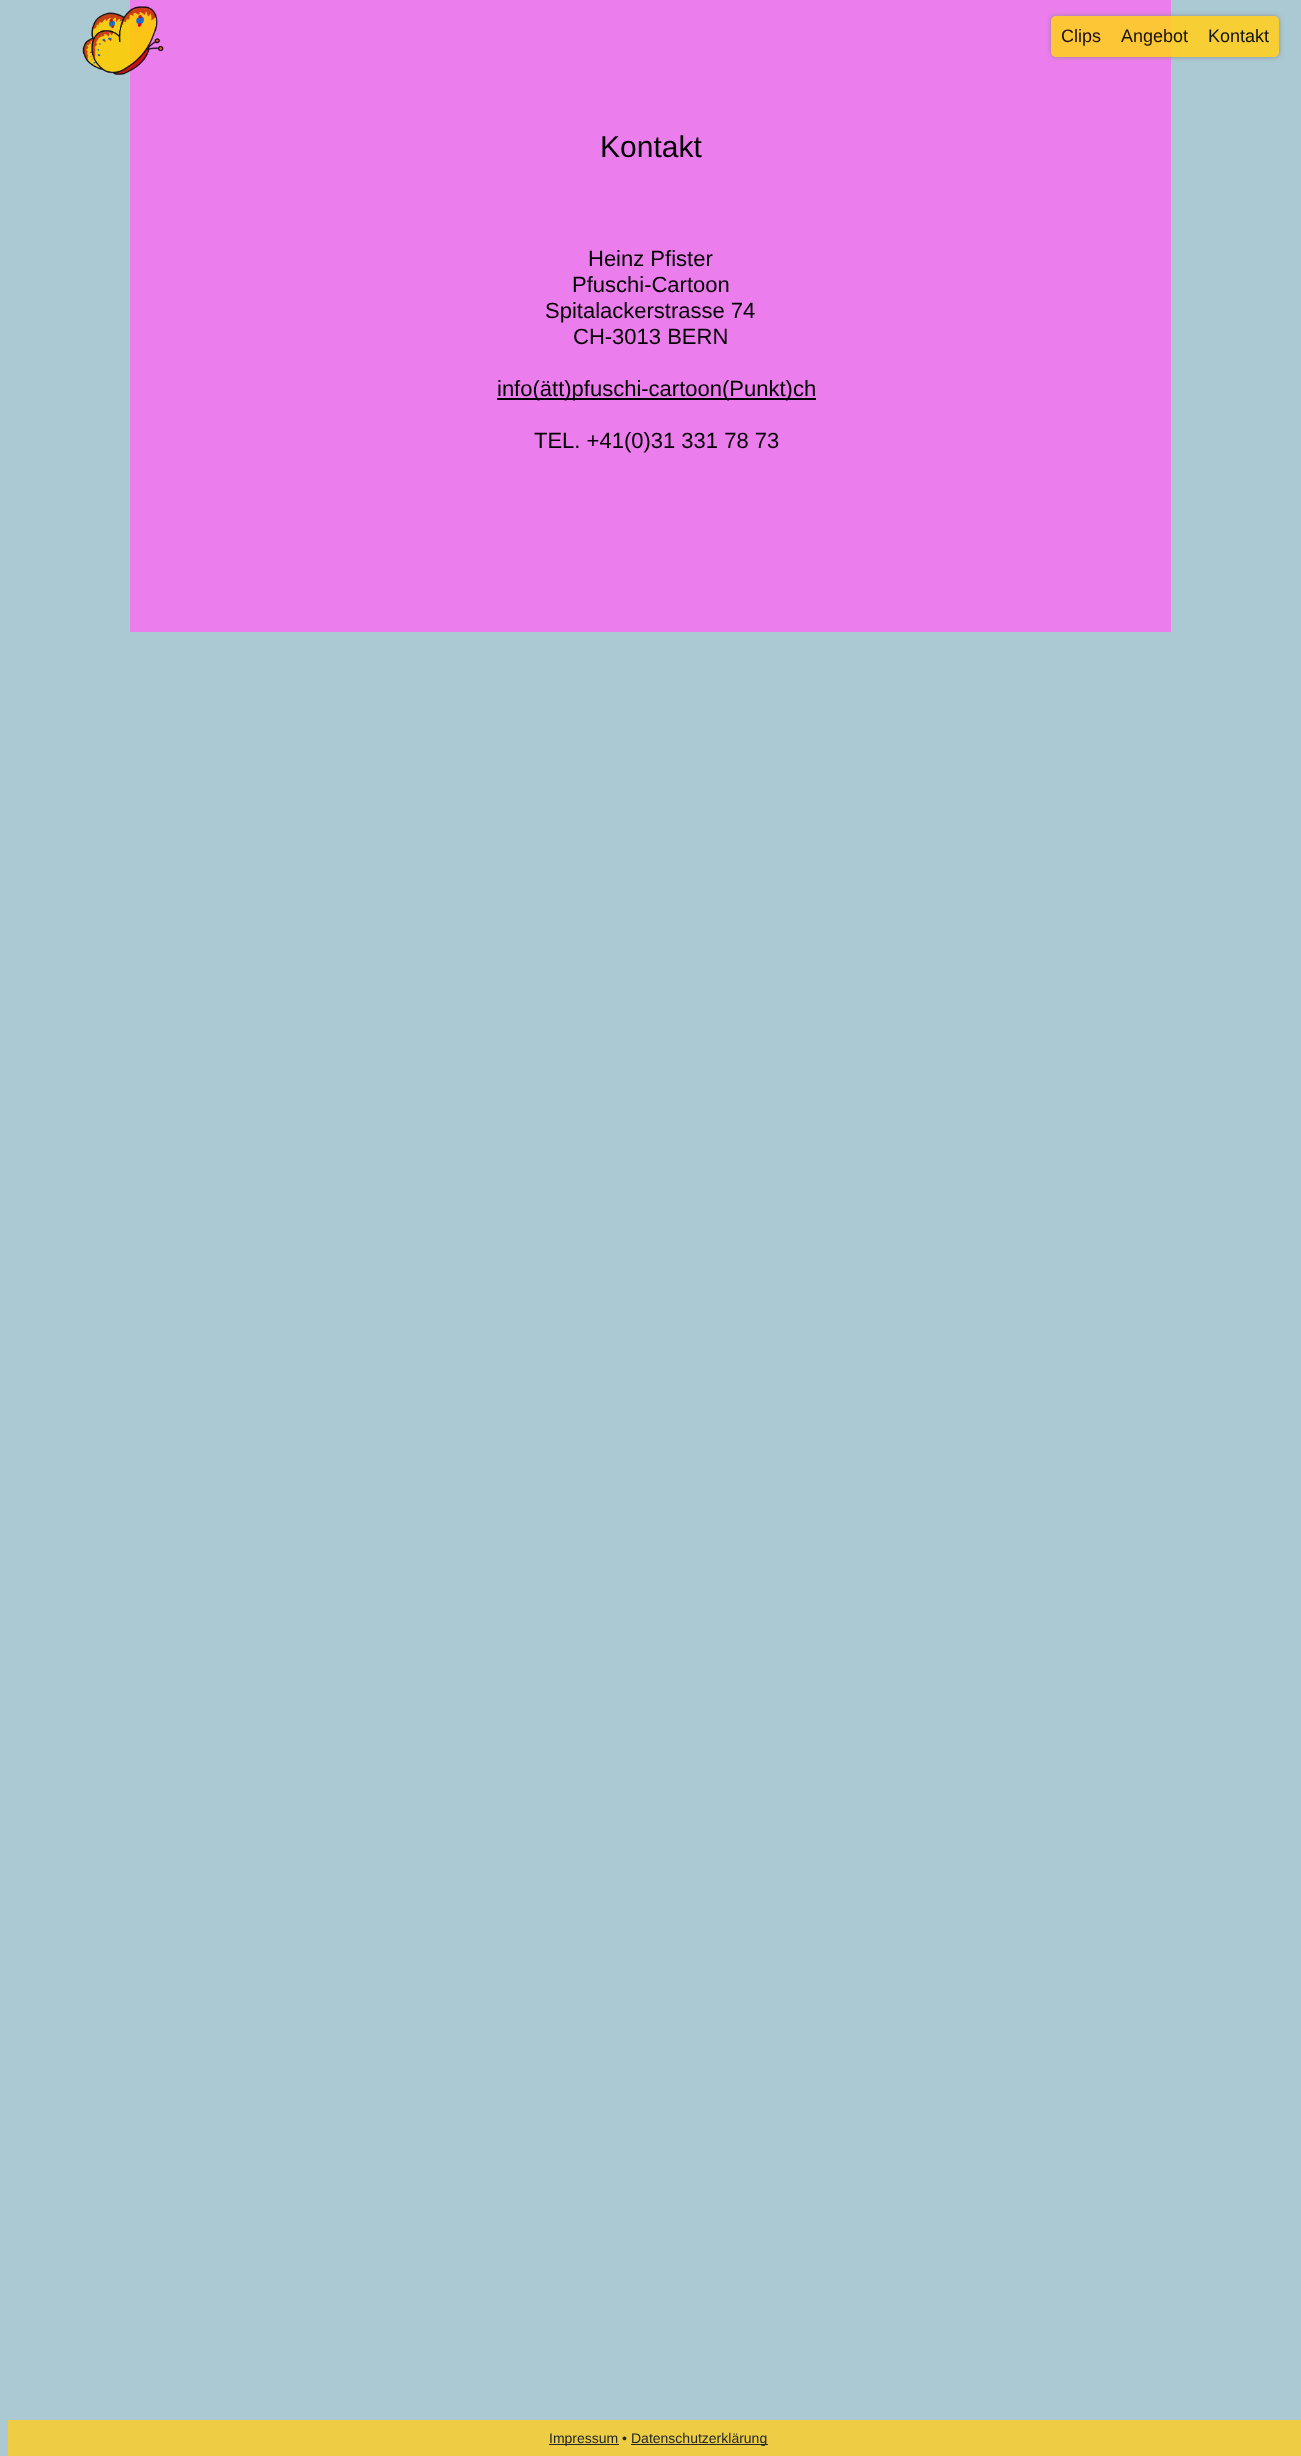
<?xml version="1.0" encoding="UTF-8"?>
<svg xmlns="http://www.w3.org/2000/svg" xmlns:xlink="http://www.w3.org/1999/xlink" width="1301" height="2456">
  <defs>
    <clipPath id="clip1"><path d="M 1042 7 h 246 v 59 h -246 z m 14 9 h 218 c 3 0 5 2 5 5 v 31 c 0 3 -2 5 -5 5 h -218 c -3 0 -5 -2 -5 -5 v -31 c 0 -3 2 -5 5 -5 z" clip-rule="evenodd" /></clipPath>
  </defs>
  <rect width="100%" height="100%" fill="#abc9d3" />
  <rect x="130" width="1041" height="632" fill="#ec7ded" />
  <image x="82" y="6" width="82" height="69" xlink:href="image1.png" />
  <g clip-path="url(#clip1)">
    <rect x="1051" y="16" width="228" height="41" rx="5" fill="#888888" fill-opacity="0.9" filter="blur(2.5px)" />
  </g>
  <rect x="1051" y="16" width="228" height="41" rx="5" fill="#ffce22" fill-opacity="0.9" />
  <rect x="497" y="398" width="319" height="2" fill="#000000" />
  <rect x="8" y="2420" width="1293" height="36" fill="#eecd45" />
  <rect x="549" y="2444" width="70" height="1" fill="#22282a" />
  <rect x="631" y="2444" width="137" height="1" fill="#22282a" />
  <text x="1061" y="42" style="font-family: Liberation Sans; font-size: 18px; fill: #180d18">Clips</text>
  <text x="1121" y="42" style="font-family: Liberation Sans; font-size: 18px; fill: #191405">Angebot</text>
  <text x="1208" y="42" style="font-family: Liberation Sans; font-size: 18px; fill: #111415">Kontakt</text>
  <text x="600" y="157" style="font-family: Liberation Sans; font-size: 30px; fill: #000000">Kontakt</text>
  <text x="588" y="266" style="font-family: Liberation Sans; font-size: 22px; fill: #000000">Heinz Pfister</text>
  <text x="572" y="292" style="font-family: Liberation Sans; font-size: 22px; fill: #000000">Pfuschi-Cartoon</text>
  <text x="545" y="318" style="font-family: Liberation Sans; font-size: 22px; fill: #000000">Spitalackerstrasse 74</text>
  <text x="573" y="344" style="font-family: Liberation Sans; font-size: 22px; fill: #000000">CH-3013 BERN</text>
  <text x="497" y="396" style="font-family: Liberation Sans; font-size: 22px; fill: #000000">info(ätt)pfuschi-cartoon(Punkt)ch</text>
  <text x="534" y="448" style="font-family: Liberation Sans; font-size: 22px; fill: #000000">TEL. +41(0)31 331 78 73</text>
  <text x="549" y="2443" style="font-family: Liberation Sans; font-size: 14px; fill: #22282a">Impressum •</text>
  <text x="631" y="2443" style="font-family: Liberation Sans; font-size: 14px; fill: #22282a">Datenschutzerklärung</text>
</svg>
